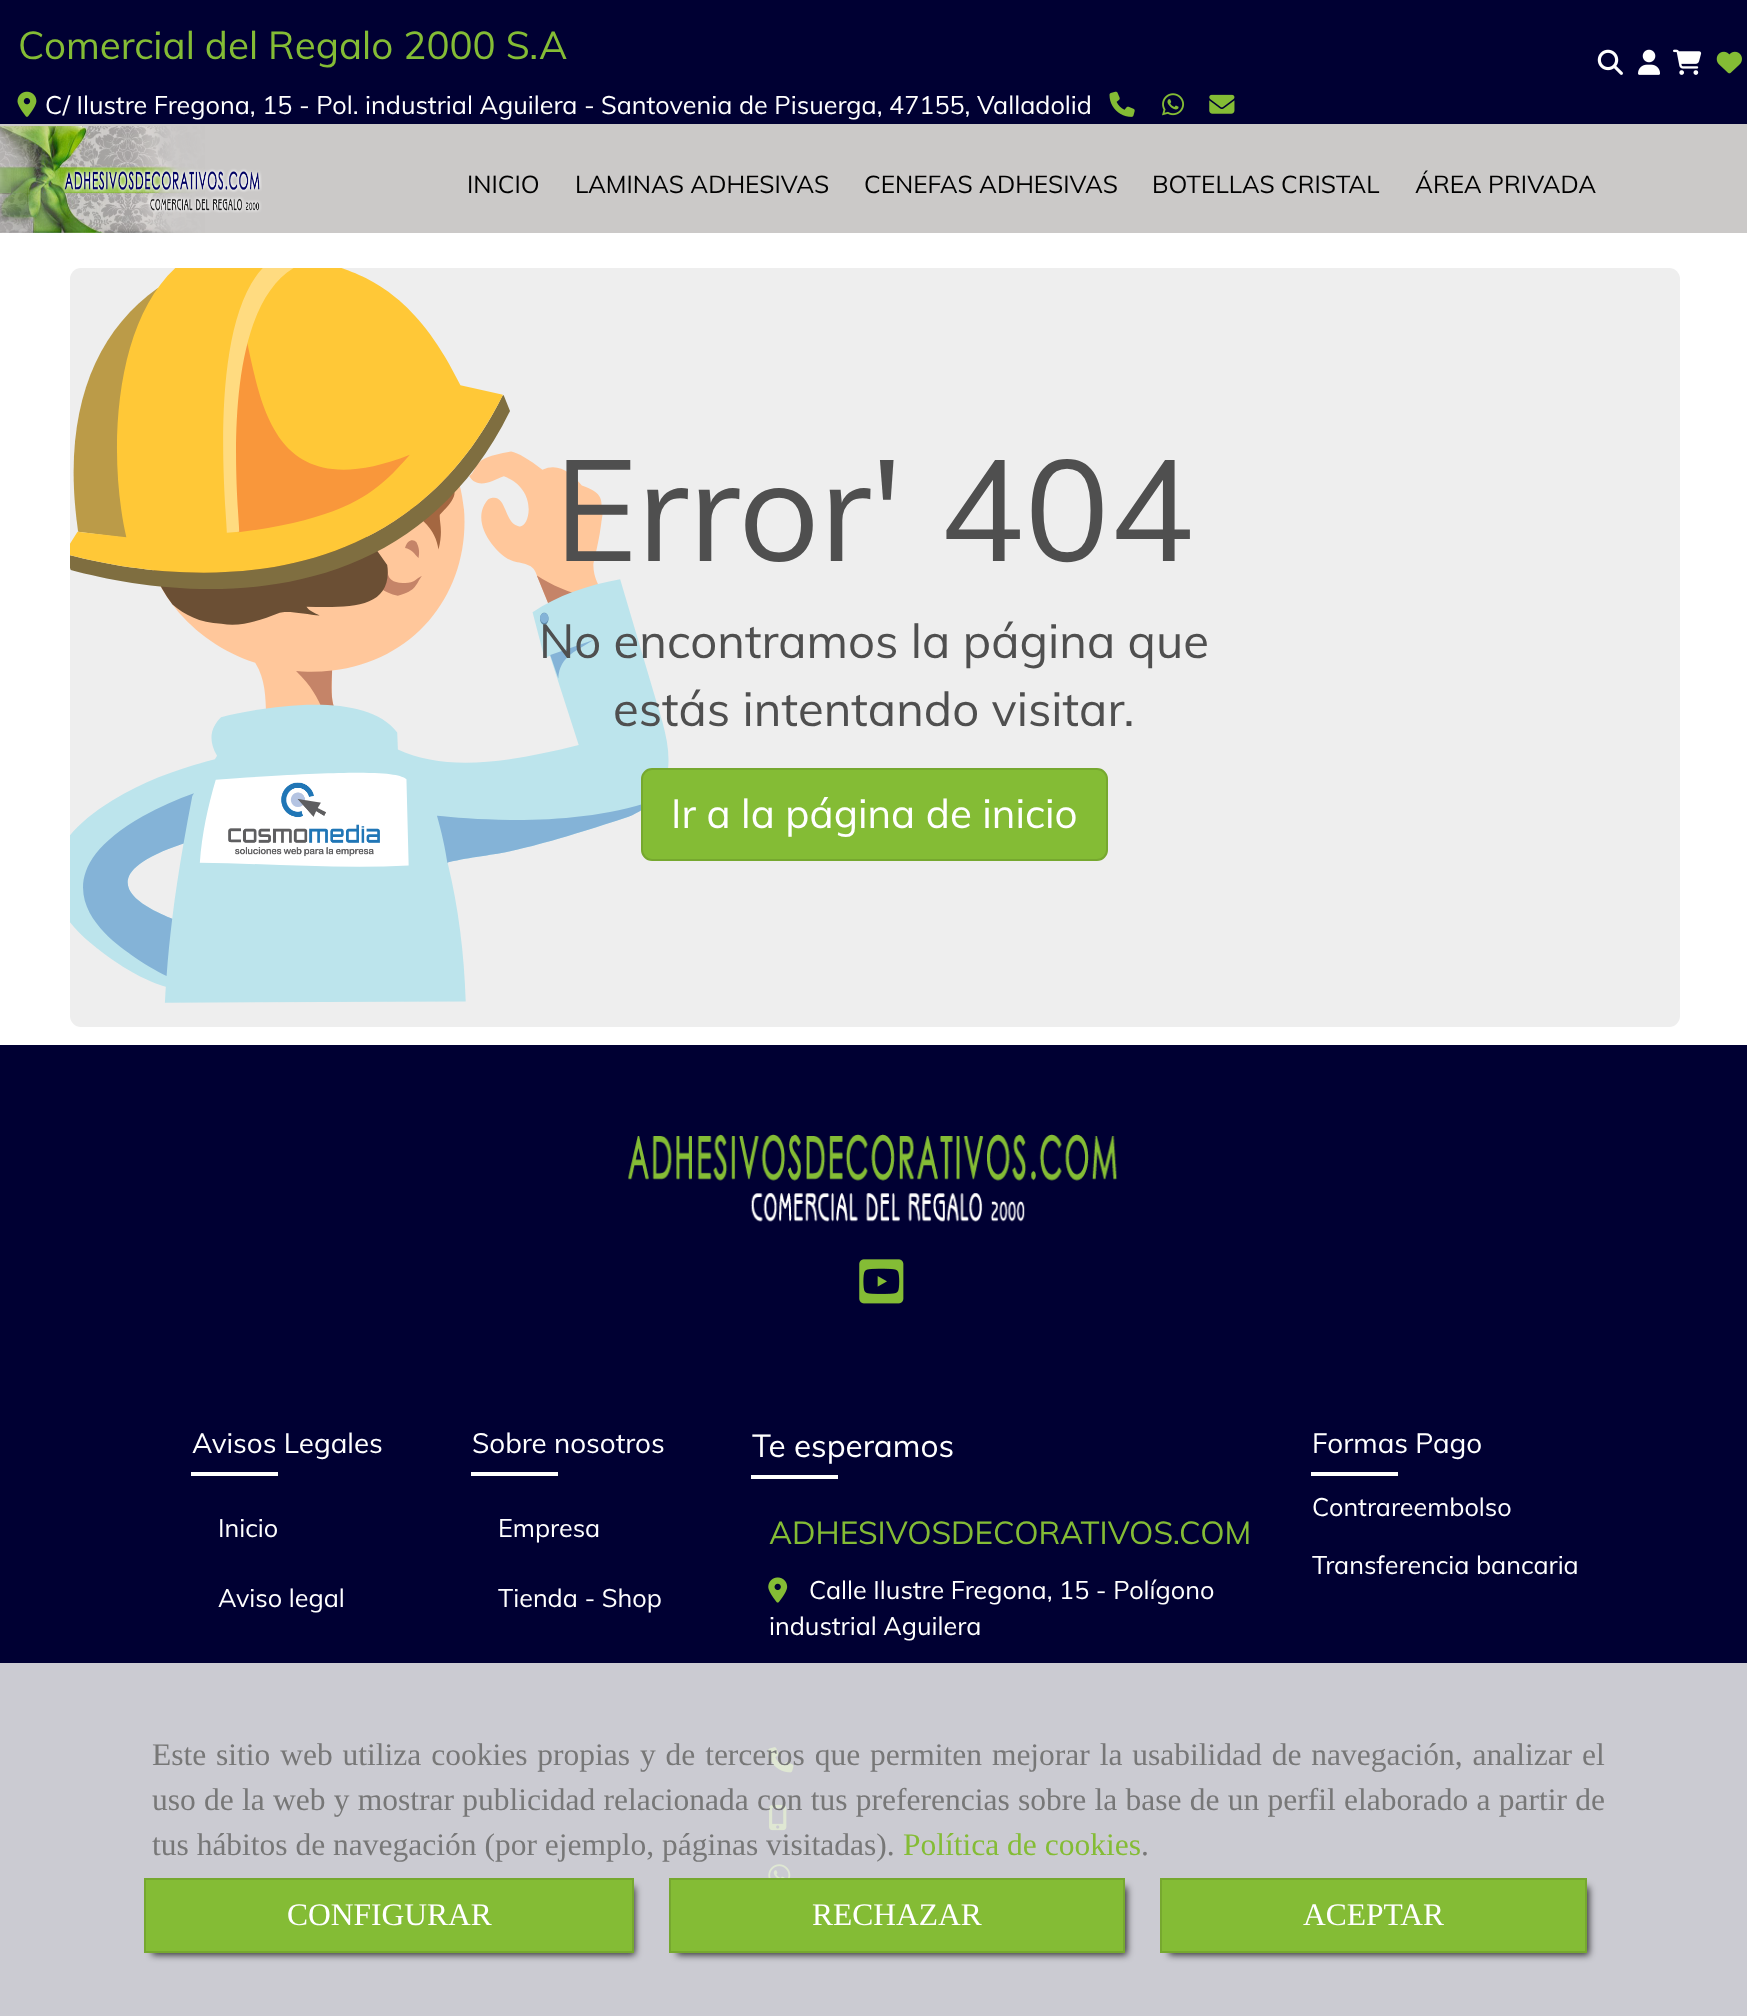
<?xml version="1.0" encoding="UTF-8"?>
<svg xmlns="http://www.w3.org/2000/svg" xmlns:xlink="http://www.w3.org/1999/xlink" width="1747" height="2016">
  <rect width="100%" height="100%" fill="#ffffff" />
  <rect width="1747" height="124" fill="#000033" />
  <image x="17" y="91" width="20" height="26" xlink:href="image1.png" />
  <image x="1109" y="91" width="26" height="26" xlink:href="image2.png" />
  <image x="1162" y="93" width="23" height="23" xlink:href="image3.png" />
  <image x="1209" y="94" width="26" height="20" xlink:href="image4.png" />
  <image x="1597" y="49" width="26" height="26" xlink:href="image5.png" />
  <image x="1638" y="49" width="22" height="26" xlink:href="image6.png" />
  <image x="1673" y="49" width="29" height="26" xlink:href="image7.png" />
  <image x="1716" y="51" width="26" height="23" xlink:href="image8.png" />
  <rect y="124" width="1747" height="109" fill="#cbc9c8" />
  <image x="0" y="126" width="262" height="107" xlink:href="image9.png" />
  <rect x="70" y="268" width="1610" height="759" rx="11" fill="#eeeeee" />
  <image x="70" y="268" width="599" height="735" xlink:href="image10.png" />
  <rect x="642" y="769" width="465" height="91" rx="10" fill="#84bc35" stroke="#76a82f" stroke-width="2" />
  <rect y="1045" width="1747" height="971" fill="#000033" />
  <image x="628" y="1134" width="490" height="88" xlink:href="image11.png" />
  <image x="859" y="1259" width="45" height="45" xlink:href="image12.png" />
  <rect x="191" y="1472" width="87" height="4" fill="#ffffff" />
  <rect x="471" y="1472" width="87" height="4" fill="#ffffff" />
  <rect x="751" y="1475" width="87" height="4" fill="#ffffff" />
  <image x="768" y="1577" width="20" height="26" xlink:href="image13.png" />
  <image x="768" y="1747" width="26" height="26" xlink:href="image14.png" />
  <image x="769" y="1804" width="18" height="27" xlink:href="image15.png" />
  <image x="768" y="1864" width="23" height="14" xlink:href="image16.png" />
  <rect x="1311" y="1472" width="87" height="4" fill="#ffffff" />
  <rect y="1663" width="1747" height="353" fill="#eeeeee" fill-opacity="0.85" />
  <rect x="152" y="1887" width="483" height="68" fill="#000000" fill-opacity="0.75" filter="blur(3.5px)" />
  <rect x="145" y="1879" width="488" height="73" fill="#84bc35" stroke="#76a82f" stroke-width="2" />
  <rect x="677" y="1887" width="450" height="68" fill="#000000" fill-opacity="0.75" filter="blur(3.5px)" />
  <rect x="670" y="1879" width="454" height="73" fill="#84bc35" stroke="#76a82f" stroke-width="2" />
  <rect x="1169" y="1887" width="420" height="68" fill="#000000" fill-opacity="0.75" filter="blur(3.5px)" />
  <rect x="1161" y="1879" width="425" height="73" fill="#84bc35" stroke="#76a82f" stroke-width="2" />
  <text x="18" y="59" style="font-family: Muli; font-size: 38.5px; fill: #84bc35">Comercial del Regalo 2000 S.A</text>
  <text x="45" y="114" style="font-family: Muli; font-size: 25.2px; fill: #ffffff">C/ Ilustre Fregona, 15 - Pol. industrial Aguilera -</text>
  <text x="601" y="114" style="font-family: Muli; font-size: 25.2px; fill: #ffffff">Santovenia de Pisuerga, 47155, Valladolid</text>
  <text x="467" y="193" style="font-family: Muli; font-size: 24.4px; fill: #000000">INICIO</text>
  <text x="575" y="193" style="font-family: Muli; font-size: 24.4px; fill: #000000">LAMINAS ADHESIVAS</text>
  <text x="864" y="193" style="font-family: Muli; font-size: 24.4px; fill: #000000">CENEFAS ADHESIVAS</text>
  <text x="1152" y="193" style="font-family: Muli; font-size: 24.4px; fill: #000000">BOTELLAS CRISTAL</text>
  <text x="1415" y="193" style="font-family: Muli; font-size: 24.4px; fill: #000000">ÁREA PRIVADA</text>
  <text x="554" y="561" style="font-family: Muli; font-size: 141.75px; fill: #4f4f4f">Error' 404</text>
  <text x="539" y="658" style="font-family: Muli; font-size: 47.25px; fill: #4f4f4f">No encontramos la página que</text>
  <text x="613" y="726" style="font-family: Muli; font-size: 47.25px; fill: #4f4f4f">estás intentando visitar.</text>
  <text x="671" y="828" style="font-family: Muli; font-size: 40.25px; fill: #ffffff">Ir a la página de inicio</text>
  <text x="192" y="1453" style="font-family: Muli; font-size: 27.75px; fill: #ffffff">Avisos Legales</text>
  <text x="218" y="1537" style="font-family: Muli; font-size: 25.2px; fill: #ffffff">Inicio</text>
  <text x="218" y="1607" style="font-family: Muli; font-size: 25.2px; fill: #ffffff">Aviso legal</text>
  <text x="472" y="1453" style="font-family: Muli; font-size: 27.75px; fill: #ffffff">Sobre nosotros</text>
  <text x="498" y="1537" style="font-family: Muli; font-size: 25.2px; fill: #ffffff">Empresa</text>
  <text x="498" y="1607" style="font-family: Muli; font-size: 25.2px; fill: #ffffff">Tienda - Shop</text>
  <text x="752" y="1457" style="font-family: Muli; font-size: 31.5px; fill: #ffffff">Te esperamos</text>
  <text x="769" y="1544" style="font-family: Muli; font-size: 31.5px; fill: #84bc35">ADHESIVOSDECORATIVOS.COM</text>
  <text x="809" y="1599" style="font-family: Muli; font-size: 25.2px; fill: #ffffff">Calle Ilustre Fregona, 15 - Polígono</text>
  <text x="769" y="1635" style="font-family: Muli; font-size: 25.2px; fill: #ffffff">industrial Aguilera</text>
  <text x="1312" y="1453" style="font-family: Muli; font-size: 27.75px; fill: #ffffff">Formas Pago</text>
  <text x="1312" y="1516" style="font-family: Muli; font-size: 25.2px; fill: #ffffff">Contrareembolso</text>
  <text x="1312" y="1574" style="font-family: Muli; font-size: 25.2px; fill: #ffffff">Transferencia bancaria</text>
  <text x="152" y="1765" word-spacing="2" style="font-family: Liberation Serif; font-size: 31.5px; fill: #777777">Este sitio web utiliza cookies propias y de terceros que permiten mejorar la usabilidad de navegación, analizar el</text>
  <text x="152" y="1810" word-spacing="0.4" style="font-family: Liberation Serif; font-size: 31.5px; fill: #777777">uso de la web y mostrar publicidad relacionada con tus preferencias sobre la base de un perfil elaborado a partir de</text>
  <text x="152" y="1855" style="font-family: Liberation Serif; font-size: 31.5px; fill: #777777">tus hábitos de navegación (por ejemplo, páginas visitadas).</text>
  <text x="903" y="1855" style="font-family: Liberation Serif; font-size: 31.5px; fill: #84bc35">Política de cookies</text>
  <text x="1141" y="1855" style="font-family: Liberation Serif; font-size: 31.5px; fill: #777777">.</text>
  <text x="287" y="1925" style="font-family: Liberation Serif; font-size: 31.5px; fill: #ffffff">CONFIGURAR</text>
  <text x="812" y="1925" style="font-family: Liberation Serif; font-size: 31.5px; fill: #ffffff">RECHAZAR</text>
  <text x="1303" y="1925" style="font-family: Liberation Serif; font-size: 31.5px; fill: #ffffff">ACEPTAR</text>
</svg>
